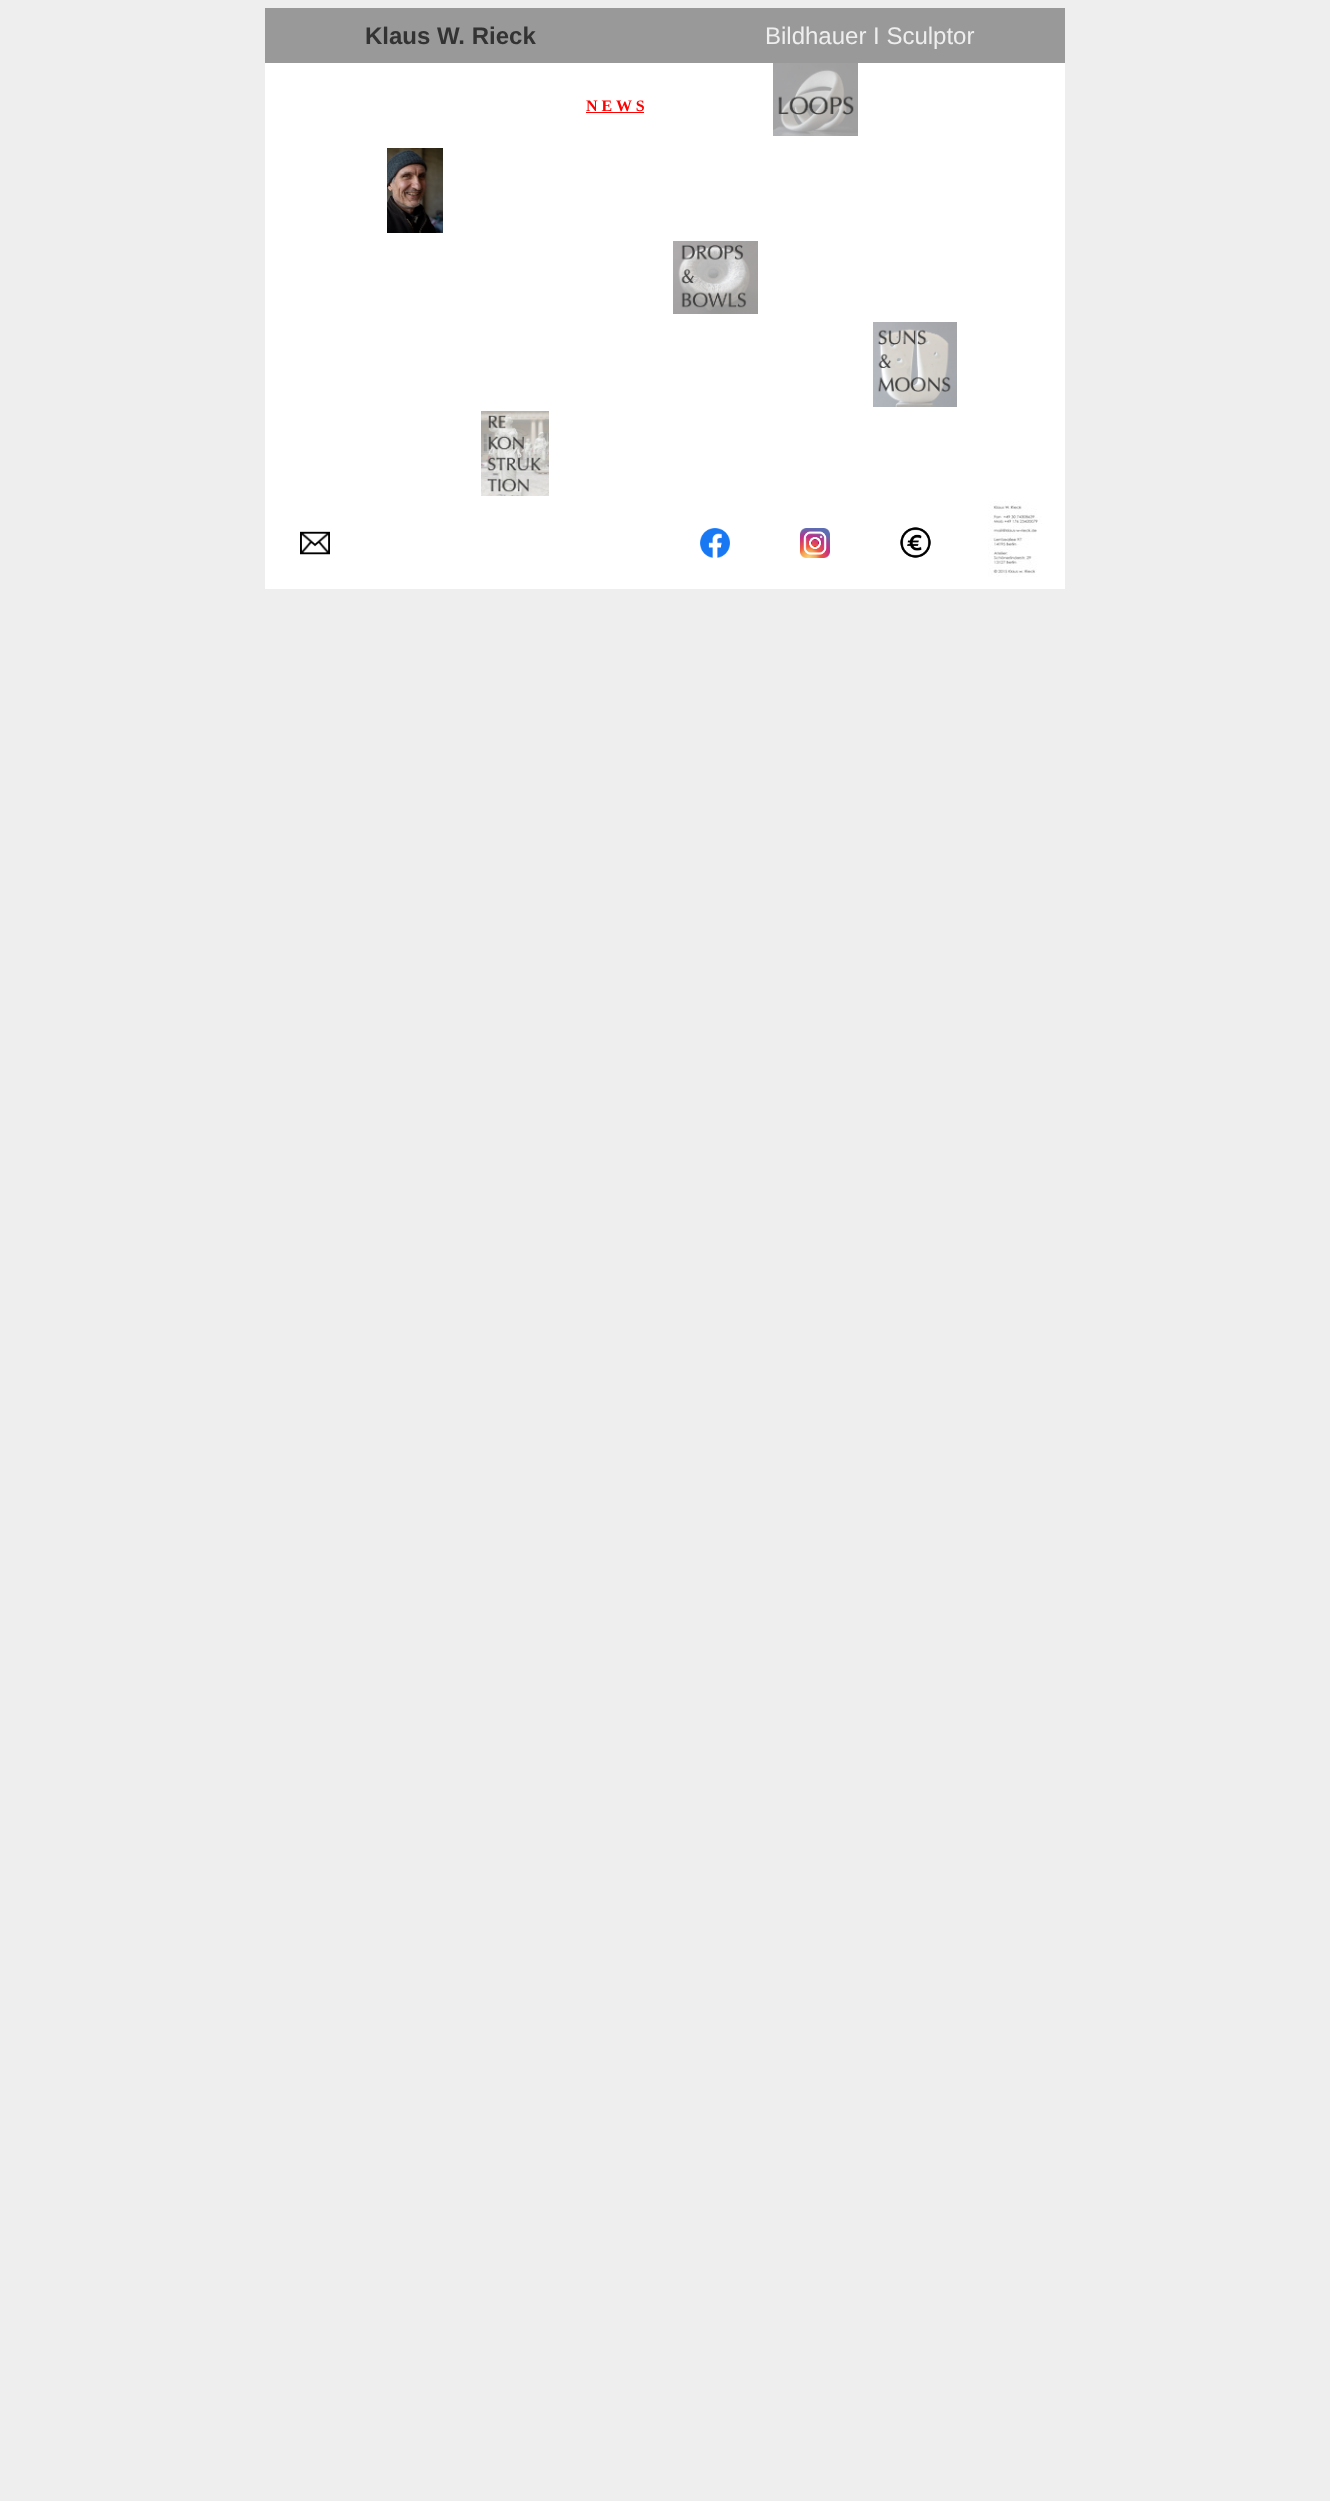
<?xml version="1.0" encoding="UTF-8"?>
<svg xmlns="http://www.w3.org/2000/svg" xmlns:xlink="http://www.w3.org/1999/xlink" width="1330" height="2501">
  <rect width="100%" height="100%" fill="#eeeeee" />
  <rect x="265" y="8" width="800" height="55" fill="#999999" />
  <rect x="265" y="63" width="800" height="85" fill="#ffffff" />
  <rect x="586" y="112" width="58" height="1" fill="#ff0000" />
  <image x="773" y="63" width="85" height="73" xlink:href="image1.png" />
  <rect x="265" y="148" width="800" height="89" fill="#ffffff" />
  <image x="387" y="148" width="56" height="85" xlink:href="image2.png" />
  <rect x="265" y="237" width="800" height="85" fill="#ffffff" />
  <image x="673" y="241" width="85" height="73" xlink:href="image3.png" />
  <rect x="265" y="322" width="800" height="89" fill="#ffffff" />
  <image x="873" y="322" width="84" height="85" xlink:href="image4.png" />
  <rect x="265" y="411" width="800" height="89" fill="#ffffff" />
  <image x="481" y="411" width="68" height="85" xlink:href="image5.png" />
  <rect x="265" y="500" width="800" height="89" fill="#ffffff" />
  <image x="300" y="531" width="30" height="24" xlink:href="image6.png" />
  <image x="700" y="528" width="30" height="30" xlink:href="image7.png" />
  <image x="800" y="528" width="30" height="30" xlink:href="image8.png" />
  <image x="900" y="527" width="31" height="31" xlink:href="image9.png" />
  <image x="988" y="501" width="54" height="76" xlink:href="image10.png" />
  <text x="365" y="44" style="font-family: Liberation Sans; font-size: 24px; font-weight: bold; fill: #333333">Klaus W. Rieck</text>
  <text x="765" y="44" style="font-family: Liberation Sans; font-size: 24px; fill: #eeeeee">Bildhauer I Sculptor</text>
  <text x="586" y="111" style="font-family: Liberation Serif; font-size: 16px; font-weight: bold; fill: #ff0000">N E W S</text>
</svg>
